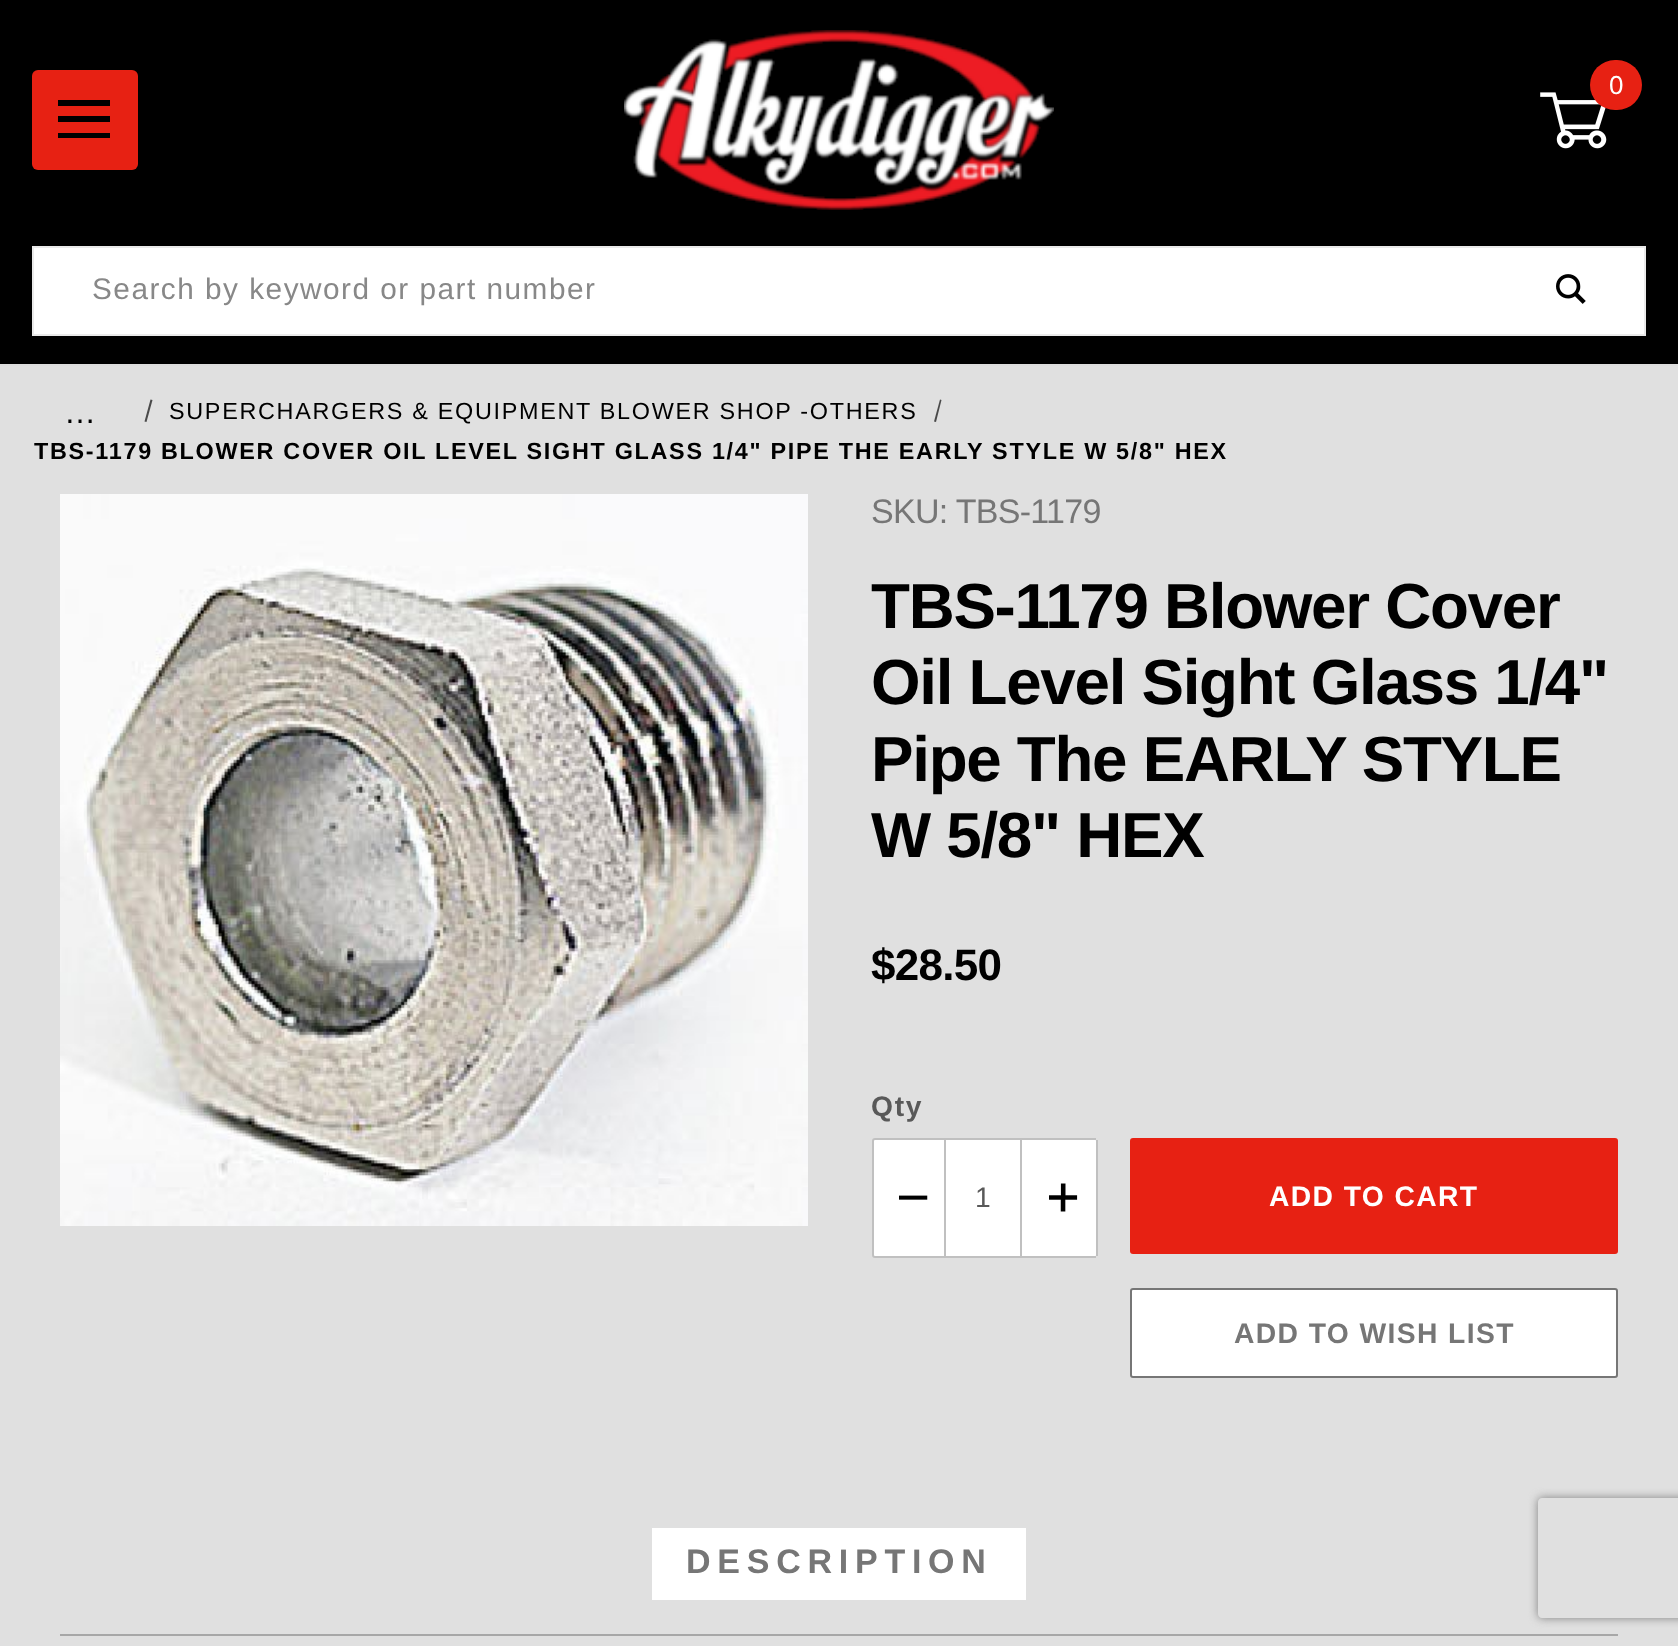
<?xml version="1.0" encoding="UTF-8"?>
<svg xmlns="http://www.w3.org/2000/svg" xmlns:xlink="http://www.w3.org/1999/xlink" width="1678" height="1646">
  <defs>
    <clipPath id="clip1"><path d="M 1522 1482 h 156 v 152 h -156 z m 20 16 h 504 c 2 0 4 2 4 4 v 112 c 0 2 -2 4 -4 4 h -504 c -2 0 -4 -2 -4 -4 v -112 c 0 -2 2 -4 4 -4 z" clip-rule="evenodd" /></clipPath>
  </defs>
  <rect width="100%" height="100%" fill="#e0e0e0" />
  <rect width="1678" height="364" fill="#000000" />
  <rect x="32" y="70" width="106" height="100" rx="6" fill="#e72113" />
  <path d="M 58 133 v 5 h 52 v -5 z m 0 -17 v 6 h 52 v -6 z m 0 -16 v 6 h 52 v -6 z" fill="#000000" />
  <image x="624" y="30" width="430" height="180" xlink:href="image1.png" />
  <image x="1540" y="92" width="67" height="57" xlink:href="image2.png" />
  <rect x="1590" y="60" width="52" height="50" rx="25" fill="#e72113" />
  <rect x="33" y="247" width="1612" height="88" fill="#ffffff" stroke="#eaeaea" stroke-width="2" />
  <image x="1556" y="274" width="30" height="30" xlink:href="image3.png" />
  <rect y="364" width="1678" height="2" fill="#dddddd" />
  <path d="M 150.5 399.5 l 2 0.5 l -6 22 l -2 -0.5 z" fill="#4a4a4a" />
  <path d="M 940 399.5 l 1.5 0.5 l -5.5 22 l -2 -0.5 z" fill="#4a4a4a" />
  <image x="60" y="494" width="748" height="732" xlink:href="image4.png" />
  <path d="M 875 1139 h 70 v 118 h -70 c -1 0 -2 -1 -2 -2 v -114 c 0 -1 1 -2 2 -2 z" fill="#ffffff" stroke="#c0c0c0" stroke-width="2" />
  <rect x="946" y="1140" width="74" height="116" fill="#ffffff" />
  <rect x="946" y="1138" width="150" height="2" fill="#c0c0c0" />
  <rect x="1020" y="1138" width="2" height="120" fill="#c0c0c0" />
  <rect x="946" y="1256" width="150" height="2" fill="#c0c0c0" />
  <path d="M 1022 1140 h 73 c 0.5 0 1 0.5 1 1 v 114 c 0 0.5 -0.5 1 -1 1 h -73 z" fill="#ffffff" />
  <rect x="1096" y="1140" width="2" height="116" fill="#c0c0c0" />
  <rect x="1130" y="1138" width="488" height="116" rx="3" fill="#e72113" />
  <rect x="1131" y="1289" width="486" height="88" rx="2" fill="#ffffff" stroke="#767676" stroke-width="2" />
  <rect x="60" y="1634" width="1558" height="2" fill="#a7a7a7" />
  <rect x="652" y="1528" width="374" height="72" fill="#ffffff" />
  <g clip-path="url(#clip1)">
    <rect x="1538" y="1498" width="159" height="120" rx="4" fill="#808080" filter="blur(5px)" />
  </g>
  <text x="1609" y="94" style="font-family: Liberation Sans; font-size: 26px; letter-spacing: 1.7px; fill: #ffffff">0</text>
  <text x="92" y="299" style="font-family: Liberation Sans; font-size: 29.75px; letter-spacing: 1.5px; fill: #888888">Search by keyword or part number</text>
  <text x="64" y="423" style="font-family: Liberation Sans; font-size: 32px; letter-spacing: 2px; fill: #000000">…</text>
  <text x="169" y="419" style="font-family: Liberation Sans; font-size: 23.38px; letter-spacing: 1.7px; fill: #000000">SUPERCHARGERS &amp; EQUIPMENT BLOWER SHOP -OTHERS</text>
  <text x="34" y="459" style="font-family: Liberation Sans; font-size: 23.38px; font-weight: bold; letter-spacing: 1.7px; fill: #000000">TBS-1179 BLOWER COVER OIL LEVEL SIGHT GLASS 1/4" PIPE THE EARLY STYLE W 5/8" HEX</text>
  <text x="871" y="523" style="font-family: Liberation Sans; font-size: 34px; letter-spacing: -0.7px; fill: #767676">SKU: TBS-1179</text>
  <text x="871" y="628" style="font-family: Liberation Sans; font-size: 63.75px; font-weight: bold; letter-spacing: -1.3px; fill: #000000">TBS-1179 Blower Cover</text>
  <text x="871" y="704" style="font-family: Liberation Sans; font-size: 63.75px; font-weight: bold; letter-spacing: -1.3px; fill: #000000">Oil Level Sight Glass 1/4"</text>
  <text x="871" y="781" style="font-family: Liberation Sans; font-size: 63.75px; font-weight: bold; letter-spacing: -1.3px; fill: #000000">Pipe The EARLY STYLE</text>
  <text x="871" y="857" style="font-family: Liberation Sans; font-size: 63.75px; font-weight: bold; letter-spacing: -1.3px; fill: #000000">W 5/8" HEX</text>
  <text x="871" y="980" style="font-family: Liberation Sans; font-size: 44px; font-weight: bold; letter-spacing: -0.7px; fill: #000000">$28.50</text>
  <text x="871" y="1116" style="font-family: Liberation Sans; font-size: 28.25px; font-weight: bold; letter-spacing: 1.7px; fill: #595959">Qty</text>
  <text x="899" y="1210" style="font-family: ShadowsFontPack; font-size: 28.25px; letter-spacing: 1.4px; fill: #000000">&lt;</text>
  <text x="975" y="1207" style="font-family: Liberation Sans; font-size: 28.25px; letter-spacing: 1.4px; fill: #595959">1</text>
  <text x="1049" y="1210" style="font-family: ShadowsFontPack; font-size: 28.25px; letter-spacing: 1.4px; fill: #000000">=</text>
  <text x="1269" y="1206" style="font-family: Liberation Sans; font-size: 28.25px; font-weight: bold; letter-spacing: 1.4px; fill: #ffffff">ADD TO CART</text>
  <text x="1234" y="1343" style="font-family: Liberation Sans; font-size: 28.25px; font-weight: bold; letter-spacing: 1.4px; fill: #767676">ADD TO WISH LIST</text>
  <text x="686" y="1573" style="font-family: Liberation Sans; font-size: 34px; font-weight: bold; letter-spacing: 6.75px; fill: #767676">DESCRIPTION</text>
</svg>
